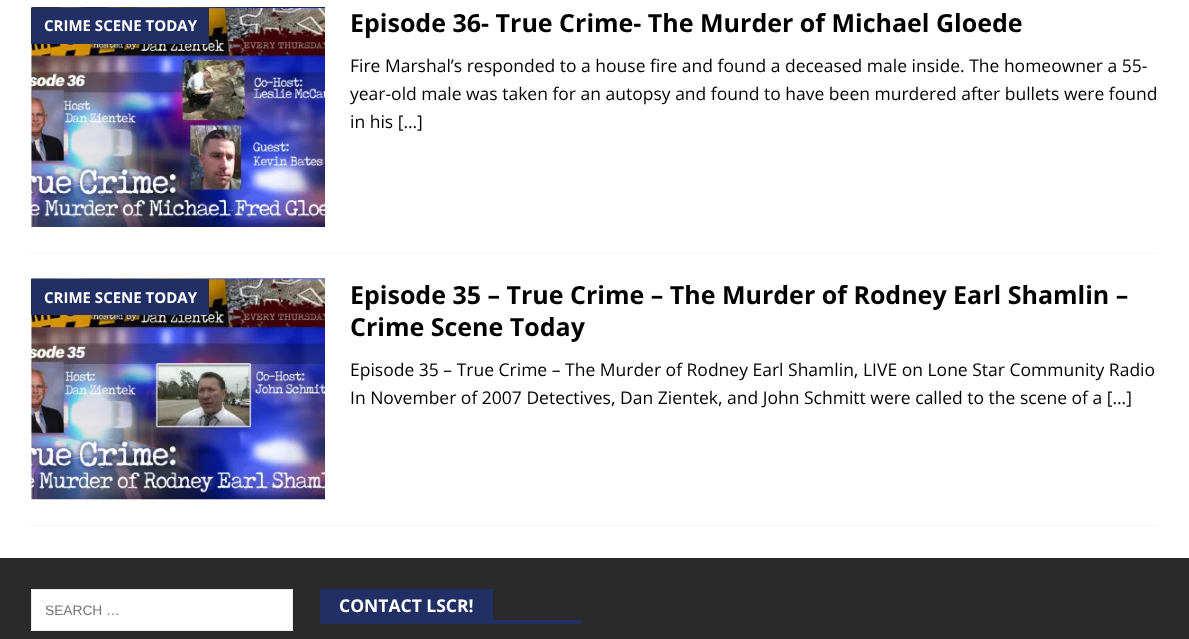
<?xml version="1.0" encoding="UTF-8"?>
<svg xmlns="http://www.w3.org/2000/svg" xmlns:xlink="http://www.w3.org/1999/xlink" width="1189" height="639">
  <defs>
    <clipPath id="clip1"><rect x="31" width="1128" height="526" /></clipPath>
  </defs>
  <rect width="100%" height="100%" fill="#2a2a2a" />
  <rect width="1189" height="558" fill="#ffffff" />
  <path d="M 31 253 h 1128" fill="none" stroke="#ebebeb" stroke-width="1.2" stroke-dasharray="1.25 1.25" />
  <image x="31" y="7" width="294" height="220" xlink:href="image1.png" />
  <rect x="31" y="8" width="178" height="36" fill="#212f64" />
  <g clip-path="url(#clip1)">
    <path d="M 31 525.5 h 1128" fill="none" stroke="#ebebeb" stroke-width="1.2" stroke-dasharray="1.25 1.25" />
  </g>
  <image x="31" y="278" width="294" height="222" xlink:href="image2.png" />
  <rect x="31" y="279" width="178" height="36" fill="#212f64" />
  <rect x="31.5" y="589.5" width="261" height="41" fill="#ffffff" stroke="#ebebeb" />
  <rect x="320" y="620" width="261" height="4" fill="#212f64" />
  <rect x="320" y="589" width="173" height="31" fill="#212f64" />
  <text x="44" y="31" style="font-family: Open Sans; font-size: 15px; font-weight: bold; fill: #ffffff">CRIME SCENE TODAY</text>
  <text x="350" y="32" style="font-family: Open Sans; font-size: 25px; font-weight: bold; fill: #000000">Episode 36- True Crime- The Murder of Michael Gloede</text>
  <text x="350" y="72" style="font-family: Open Sans; font-size: 17.5px; fill: #000000">Fire Marshal’s responded to a house fire and found a deceased male inside. The homeowner a 55-</text>
  <text x="350" y="100" style="font-family: Open Sans; font-size: 17.5px; fill: #000000">year-old male was taken for an autopsy and found to have been murdered after bullets were found</text>
  <text x="350" y="128" style="font-family: Open Sans; font-size: 17.5px; fill: #000000">in his […]</text>
  <text x="44" y="303" style="font-family: Open Sans; font-size: 15px; font-weight: bold; fill: #ffffff">CRIME SCENE TODAY</text>
  <text x="350" y="304" style="font-family: Open Sans; font-size: 25px; font-weight: bold; fill: #000000">Episode 35 – True Crime – The Murder of Rodney Earl Shamlin –</text>
  <text x="350" y="336" style="font-family: Open Sans; font-size: 25px; font-weight: bold; fill: #000000">Crime Scene Today</text>
  <text x="350" y="376" style="font-family: Open Sans; font-size: 17.5px; fill: #000000">Episode 35 – True Crime – The Murder of Rodney Earl Shamlin, LIVE on Lone Star Community Radio</text>
  <text x="350" y="404" style="font-family: Open Sans; font-size: 17.5px; fill: #000000">In November of 2007 Detectives, Dan Zientek, and John Schmitt were called to the scene of a […]</text>
  <text x="45" y="615" style="font-family: Liberation Sans; font-size: 13.75px; fill: #757575">SEARCH …</text>
  <text x="339" y="612" style="font-family: Open Sans; font-size: 17.5px; font-weight: bold; fill: #ffffff">CONTACT LSCR!</text>
</svg>
